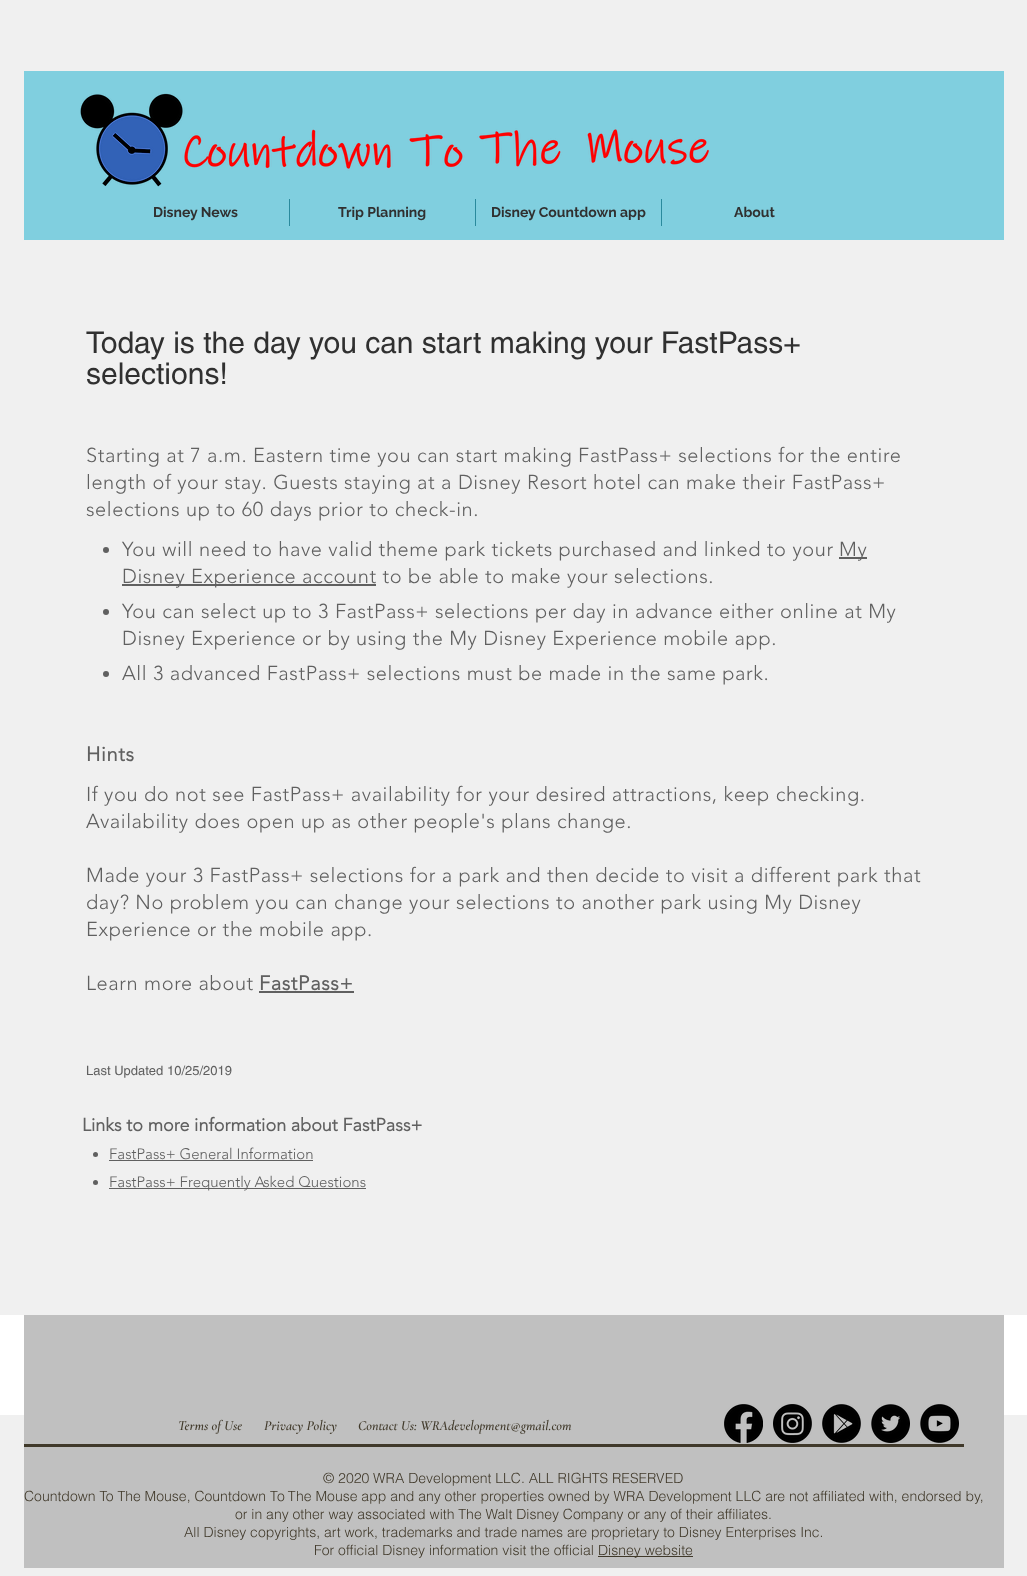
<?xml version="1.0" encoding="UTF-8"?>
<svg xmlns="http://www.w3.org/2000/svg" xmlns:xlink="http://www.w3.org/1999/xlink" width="1027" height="1576">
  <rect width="100%" height="100%" fill="#f0f0f0" />
  <rect x="24" y="71" width="980" height="169" fill="#80cfdf" />
  <image x="80" y="93" width="629" height="94" xlink:href="image1.png" />
  <rect x="289" y="199" width="1" height="27" fill="#2a8a9d" />
  <rect x="475" y="199" width="1" height="27" fill="#2a8a9d" />
  <rect x="661" y="199" width="1" height="27" fill="#2a8a9d" />
  <circle cx="106" cy="550" r="3" fill="#606060" />
  <rect x="839" y="557" width="28" height="2" fill="#606060" />
  <rect x="122" y="584" width="254" height="2" fill="#606060" />
  <circle cx="106" cy="612" r="3" fill="#606060" />
  <circle cx="106" cy="674" r="3" fill="#606060" />
  <rect x="259" y="991" width="95" height="2" fill="#606060" />
  <circle cx="95.5" cy="1154.5" r="2.5" fill="#606060" />
  <rect x="109" y="1160" width="204" height="1" fill="#606060" />
  <circle cx="95.5" cy="1182.5" r="2.5" fill="#606060" />
  <rect x="109" y="1188" width="257" height="1" fill="#606060" />
  <rect y="1315" width="1027" height="100" fill="#ffffff" />
  <rect x="24" y="1315" width="980" height="253" fill="#c0c0c0" />
  <image x="724" y="1404" width="39" height="39" xlink:href="image2.png" />
  <image x="773" y="1404" width="39" height="39" xlink:href="image3.png" />
  <image x="822" y="1404" width="39" height="39" xlink:href="image4.png" />
  <image x="871" y="1404" width="39" height="39" xlink:href="image5.png" />
  <image x="920" y="1404" width="39" height="39" xlink:href="image6.png" />
  <rect x="24" y="1444" width="940" height="3" fill="#40392a" />
  <rect x="598" y="1556" width="95" height="1" fill="#40392a" />
  <text x="153" y="217" style="font-family: Raleway; font-size: 14px; font-weight: bold; fill: #303030">Disney News</text>
  <text x="338" y="217" style="font-family: Raleway; font-size: 14px; font-weight: bold; fill: #303030">Trip Planning</text>
  <text x="491" y="217" style="font-family: Raleway; font-size: 14px; font-weight: bold; fill: #303030">Disney Countdown app</text>
  <text x="734" y="217" style="font-family: Raleway; font-size: 14px; font-weight: bold; fill: #303030">About</text>
  <text x="86" y="353" style="font-family: helvetica; font-size: 30px; fill: #303030">Today is the day you can start making your FastPass+</text>
  <text x="86" y="384" style="font-family: helvetica; font-size: 30px; fill: #303030">selections!</text>
  <text x="86" y="462" style="font-family: 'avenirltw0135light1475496'; font-size: 20px; font-weight: 300; letter-spacing: 0.6px; fill: #606060">Starting at 7 a.m. Eastern time you can start making FastPass+ selections for the entire</text>
  <text x="86" y="489" style="font-family: 'avenirltw0135light1475496'; font-size: 20px; font-weight: 300; letter-spacing: 0.6px; fill: #606060">length of your stay. Guests staying at a Disney Resort hotel can make their FastPass+</text>
  <text x="86" y="516" style="font-family: 'avenirltw0135light1475496'; font-size: 20px; font-weight: 300; letter-spacing: 0.6px; fill: #606060">selections up to 60 days prior to check-in.</text>
  <text x="122" y="556" style="font-family: 'avenirltw0135light1475496'; font-size: 20px; font-weight: 300; letter-spacing: 0.6px; fill: #606060">You will need to have valid theme park tickets purchased and linked to your</text>
  <text x="839" y="556" style="font-family: 'avenirltw0135light1475496'; font-size: 20px; font-weight: 300; letter-spacing: 0.6px; fill: #606060">My</text>
  <text x="122" y="583" style="font-family: 'avenirltw0135light1475496'; font-size: 20px; font-weight: 300; letter-spacing: 0.6px; fill: #606060">Disney Experience account to be able to make your selections.</text>
  <text x="122" y="618" style="font-family: 'avenirltw0135light1475496'; font-size: 20px; font-weight: 300; letter-spacing: 0.6px; fill: #606060">You can select up to 3 FastPass+ selections per day in advance either online at My</text>
  <text x="122" y="645" style="font-family: 'avenirltw0135light1475496'; font-size: 20px; font-weight: 300; letter-spacing: 0.6px; fill: #606060">Disney Experience or by using the My Disney Experience mobile app.</text>
  <text x="122" y="680" style="font-family: 'avenirltw0135light1475496'; font-size: 20px; font-weight: 300; letter-spacing: 0.6px; fill: #606060">All 3 advanced FastPass+ selections must be made in the same park.</text>
  <text x="86" y="761" style="font-family: 'avenirltw0135light1475496'; font-size: 20px; font-weight: bold; letter-spacing: 0.6px; fill: #606060">Hints</text>
  <text x="86" y="801" style="font-family: 'avenirltw0135light1475496'; font-size: 20px; font-weight: 300; letter-spacing: 0.6px; fill: #606060">If you do not see FastPass+ availability for your desired attractions, keep checking.</text>
  <text x="86" y="828" style="font-family: 'avenirltw0135light1475496'; font-size: 20px; font-weight: 300; letter-spacing: 0.6px; fill: #606060">Availability does open up as other people's plans change.</text>
  <text x="86" y="882" style="font-family: 'avenirltw0135light1475496'; font-size: 20px; font-weight: 300; letter-spacing: 0.6px; fill: #606060">Made your 3 FastPass+ selections for a park and then decide to visit a different park that</text>
  <text x="86" y="909" style="font-family: 'avenirltw0135light1475496'; font-size: 20px; font-weight: 300; letter-spacing: 0.6px; fill: #606060">day? No problem you can change your selections to another park using My Disney</text>
  <text x="86" y="936" style="font-family: 'avenirltw0135light1475496'; font-size: 20px; font-weight: 300; letter-spacing: 0.6px; fill: #606060">Experience or the mobile app.</text>
  <text x="86" y="990" style="font-family: 'avenirltw0135light1475496'; font-size: 20px; font-weight: 300; letter-spacing: 0.6px; fill: #606060">Learn more about</text>
  <text x="259" y="990" style="font-family: 'avenirltw0135light1475496'; font-size: 20px; font-weight: bold; letter-spacing: 0.6px; fill: #606060">FastPass+</text>
  <text x="86" y="1075" style="font-family: helvetica; font-size: 13px; fill: #606060">Last Updated 10/25/2019</text>
  <text x="82" y="1131" style="font-family: 'avenirltw0135light1475496'; font-size: 18px; font-weight: bold; fill: #606060">Links to more information about FastPass+</text>
  <text x="109" y="1159" style="font-family: 'avenirltw0135light1475496'; font-size: 15px; font-weight: 300; fill: #606060">FastPass+ General Information</text>
  <text x="109" y="1187" style="font-family: 'avenirltw0135light1475496'; font-size: 15px; font-weight: 300; fill: #606060">FastPass+ Frequently Asked Questions</text>
  <text x="178" y="1430" style="font-family: Cormorant Garamond; font-size: 14px; font-weight: 600; font-style: italic; fill: #40392a">Terms of Use</text>
  <text x="264" y="1430" style="font-family: Cormorant Garamond; font-size: 14px; font-weight: 600; font-style: italic; fill: #40392a">Privacy Policy</text>
  <text x="358" y="1430" style="font-family: Cormorant Garamond; font-size: 14px; font-weight: 600; font-style: italic; fill: #40392a">Contact Us: WRAdevelopment@gmail.com</text>
  <text x="323" y="1483" style="font-family: helvetica; font-size: 14px; font-weight: 300; fill: #40392a">© 2020 WRA Development LLC. ALL RIGHTS RESERVED</text>
  <text x="24" y="1501" style="font-family: helvetica; font-size: 14px; font-weight: 300; fill: #40392a">Countdown To The Mouse, Countdown T</text>
  <text x="277" y="1501" word-spacing="-1" style="font-family: helvetica; font-size: 14px; font-weight: 300; fill: #40392a">o T</text>
  <text x="296" y="1501" style="font-family: helvetica; font-size: 14px; font-weight: 300; fill: #40392a">he Mouse app and any other properties owned by WRA Development LLC are not affiliated with, endorsed by,</text>
  <text x="235" y="1519" style="font-family: helvetica; font-size: 14px; font-weight: 300; fill: #40392a">or in any other way associated with The Walt Disney Company or any of their affiliates.</text>
  <text x="184" y="1537" style="font-family: helvetica; font-size: 14px; font-weight: 300; fill: #40392a">All Disney copyrights, art work, trademarks and trade names are proprietary to Disney Enterprises Inc.</text>
  <text x="314" y="1555" style="font-family: helvetica; font-size: 14px; font-weight: 300; fill: #40392a">For official Disney information visit the official</text>
  <text x="598" y="1555" style="font-family: helvetica; font-size: 14px; font-weight: 300; fill: #40392a">Disney website</text>
</svg>
